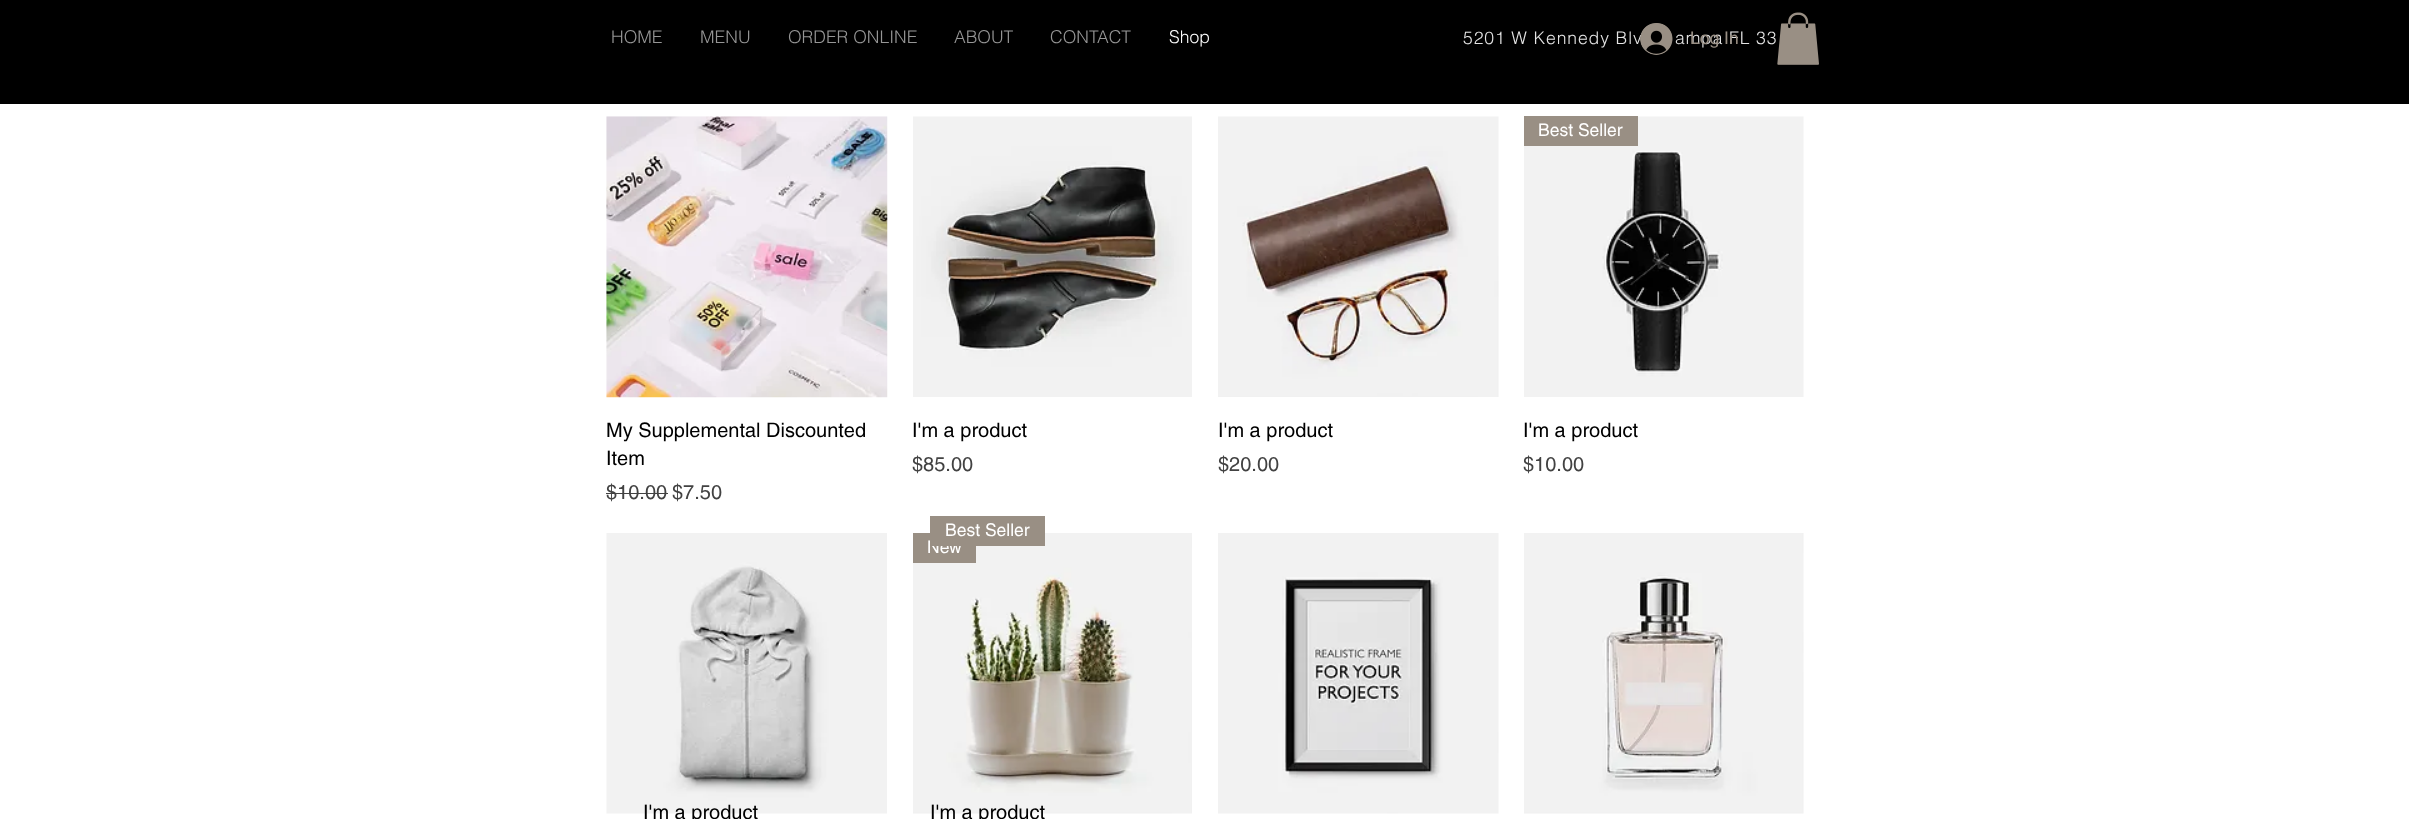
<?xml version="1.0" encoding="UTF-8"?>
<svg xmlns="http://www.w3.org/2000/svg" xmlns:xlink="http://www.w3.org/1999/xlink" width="2409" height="819">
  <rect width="100%" height="100%" fill="#ffffff" />
  <rect width="2409" height="104" fill="#000000" />
  <image x="1777" y="12" width="42" height="53" xlink:href="image1.png" />
  <image x="606" y="116" width="282" height="282" xlink:href="image3.png" />
  <rect x="606" y="493" width="62" height="1" fill="#424242" />
  <image x="913" y="116" width="279" height="281" xlink:href="image4.png" />
  <image x="1218" y="116" width="281" height="281" xlink:href="image5.png" />
  <image x="1524" y="116" width="280" height="281" xlink:href="image6.png" />
  <rect x="1524" y="116" width="114" height="30" fill="#998f84" />
  <image x="606" y="533" width="281" height="281" xlink:href="image7.png" />
  <image x="913" y="533" width="279" height="281" xlink:href="image8.png" />
  <rect x="913" y="533" width="63" height="30" fill="#998f84" />
  <image x="1218" y="533" width="281" height="281" xlink:href="image9.png" />
  <image x="1524" y="533" width="280" height="281" xlink:href="image10.png" />
  <text x="611" y="43" style="font-family: helvetica; font-size: 17.5px; font-weight: 300; fill: #969696">HOME</text>
  <text x="700" y="43" style="font-family: helvetica; font-size: 17.5px; font-weight: 300; fill: #969696">MENU</text>
  <text x="788" y="43" style="font-family: helvetica; font-size: 17.5px; font-weight: 300; fill: #969696">ORDER ONLINE</text>
  <text x="954" y="43" style="font-family: helvetica; font-size: 17.5px; font-weight: 300; fill: #969696">ABOUT</text>
  <text x="1050" y="43" style="font-family: helvetica; font-size: 17.5px; font-weight: 300; fill: #969696">CONTACT</text>
  <text x="1169" y="43" style="font-family: helvetica; font-size: 17.5px; font-weight: 300; fill: #ffffff">Shop</text>
  <text x="1463" y="44" style="font-family: helvetica; font-size: 17.5px; font-weight: 300; letter-spacing: 0.9px; fill: #e5e5e5">5201 W Kennedy Blv</text>
  <text x="1675" y="44" style="font-family: helvetica; font-size: 17.5px; font-weight: 300; letter-spacing: 0.9px; fill: #e5e5e5">ampa FL 33</text>
  <image x="1640" y="23" width="33" height="32" xlink:href="image2.png" />
  <text x="1690" y="44" style="font-family: helvetica; font-size: 17.5px; fill: #998f84">Log In</text>
  <text x="606" y="437" style="font-family: helvetica; font-size: 20px; fill: #000000">My Supplemental Discounted</text>
  <text x="606" y="465" style="font-family: helvetica; font-size: 20px; fill: #000000">Item</text>
  <text x="606" y="499" style="font-family: helvetica; font-size: 20px; fill: #424242">$10.00</text>
  <text x="672" y="499" style="font-family: helvetica; font-size: 20px; fill: #424242">$7.50</text>
  <text x="912" y="437" style="font-family: helvetica; font-size: 20px; fill: #000000">I'm a product</text>
  <text x="912" y="471" style="font-family: helvetica; font-size: 20px; fill: #424242">$85.00</text>
  <text x="1218" y="437" style="font-family: helvetica; font-size: 20px; fill: #000000">I'm a product</text>
  <text x="1218" y="471" style="font-family: helvetica; font-size: 20px; fill: #424242">$20.00</text>
  <text x="1538" y="136" style="font-family: helvetica; font-size: 17.5px; fill: #ffffff">Best Seller</text>
  <text x="1523" y="437" style="font-family: helvetica; font-size: 20px; fill: #000000">I'm a product</text>
  <text x="1523" y="471" style="font-family: helvetica; font-size: 20px; fill: #424242">$10.00</text>
  <text x="927" y="553" style="font-family: helvetica; font-size: 17.5px; fill: #ffffff">New</text>
  <text x="643" y="819" style="font-family: helvetica; font-size: 20px; fill: #000000">I'm a product</text>
  <rect x="930" y="516" width="115" height="30" fill="#998f84" />
  <text x="945" y="536" style="font-family: helvetica; font-size: 17.5px; fill: #ffffff">Best Seller</text>
  <text x="930" y="819" style="font-family: helvetica; font-size: 20px; fill: #000000">I'm a product</text>
</svg>
